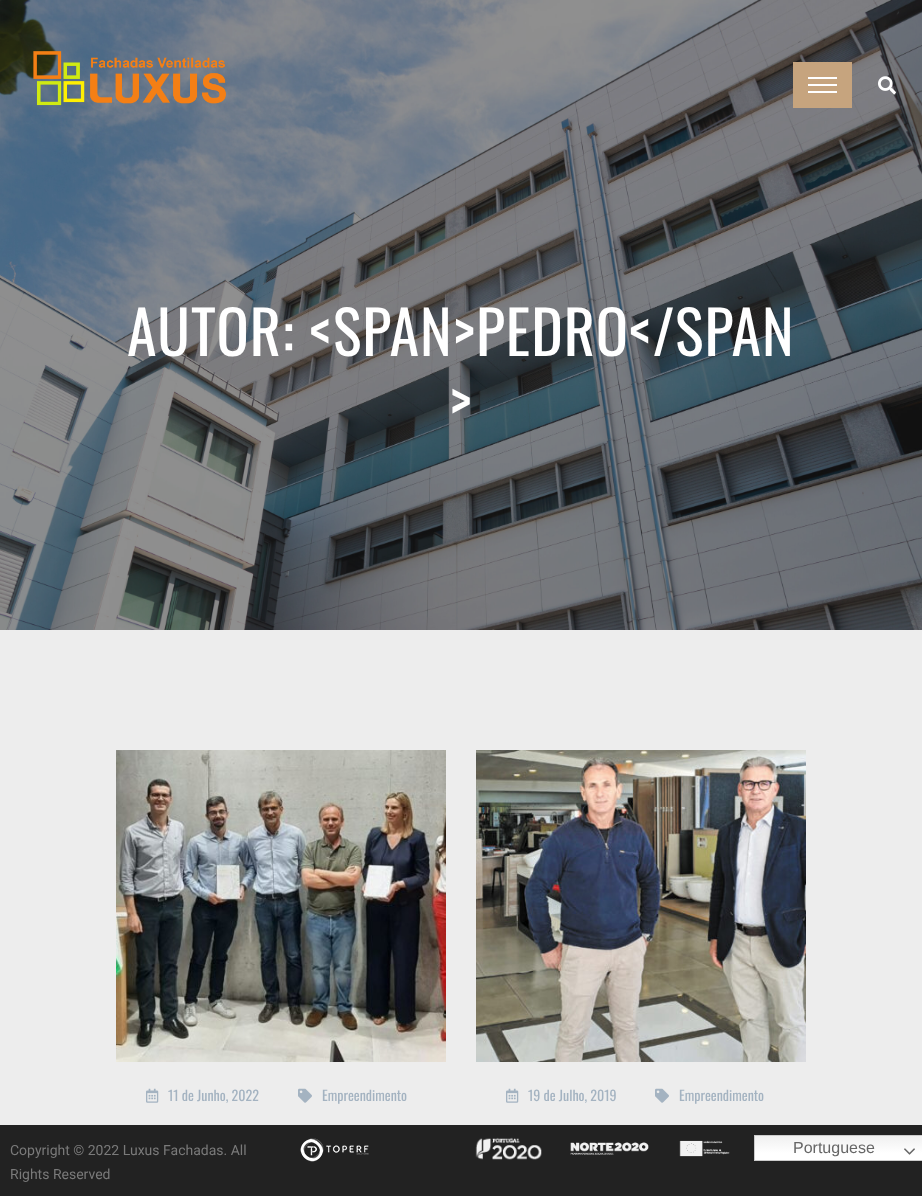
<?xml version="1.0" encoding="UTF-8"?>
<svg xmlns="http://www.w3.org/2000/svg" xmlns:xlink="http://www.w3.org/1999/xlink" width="922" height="1196">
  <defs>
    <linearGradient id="g1" gradientUnits="userSpaceOnUse" x1="841" y1="1135" x2="841" y2="1161"><stop offset="0" stop-color="#efefef" /><stop offset="0.7" stop-color="#ffffff" /></linearGradient>
  </defs>
  <rect width="100%" height="100%" fill="#ededed" />
  <image x="0" y="0" width="922" height="630" xlink:href="image3.png" />
  <image x="33" y="51" width="193" height="55" xlink:href="image1.png" />
  <rect x="793" y="62" width="59" height="46" fill="#c6a47e" />
  <rect x="808" y="77" width="29" height="2" fill="#ffffff" />
  <rect x="808" y="84" width="29" height="2" fill="#ffffff" />
  <rect x="808" y="91" width="29" height="2" fill="#ffffff" />
  <image x="878" y="76" width="18" height="19" xlink:href="image2.png" />
  <image x="116" y="750" width="330" height="312" xlink:href="image4.png" />
  <image x="146" y="1088" width="13" height="15" xlink:href="image5.png" />
  <image x="298" y="1088" width="14" height="15" xlink:href="image6.png" />
  <image x="476" y="750" width="330" height="312" xlink:href="image7.png" />
  <image x="506" y="1088" width="13" height="15" xlink:href="image5.png" />
  <image x="655" y="1088" width="14" height="15" xlink:href="image6.png" />
  <rect y="1125" width="922" height="71" fill="#222222" />
  <image x="300" y="1138" width="69" height="24" xlink:href="image8.png" />
  <image x="475" y="1137" width="67" height="23" xlink:href="image9.png" />
  <image x="570" y="1142" width="79" height="13" xlink:href="image10.png" />
  <image x="679" y="1140" width="51" height="17" xlink:href="image11.png" />
  <rect x="755" y="1136" width="167" height="24" fill="url(#g1)" />
  <rect x="754.5" y="1135.5" width="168" height="25" fill="none" stroke="#cccccc" />
  <image x="904" y="1148" width="11" height="7" xlink:href="image12.png" />
  <text x="127" y="356" style="font-family: Oswald; font-size: 60px; letter-spacing: 1px; fill: #ffffff">AUTOR: &lt;SPAN&gt;PEDRO&lt;/SPAN</text>
  <text x="449" y="426" style="font-family: Oswald; font-size: 60px; letter-spacing: 1px; fill: #ffffff">&gt;</text>
  <text x="168" y="1101" style="font-family: Oswald; font-size: 14px; fill: #a4b3c1">11 de Junho, 2022</text>
  <text x="322" y="1101" style="font-family: Oswald; font-size: 14px; fill: #a4b3c1">Empreendimento</text>
  <text x="528" y="1101" style="font-family: Oswald; font-size: 14px; fill: #a4b3c1">19 de Julho, 2019</text>
  <text x="679" y="1101" style="font-family: Oswald; font-size: 14px; fill: #a4b3c1">Empreendimento</text>
  <text x="10" y="1155" style="font-family: Roboto; font-size: 14px; fill: #7a7a7a">Copyright © 2022 Luxus Fachadas. All</text>
  <text x="10" y="1179" style="font-family: Roboto; font-size: 14px; fill: #7a7a7a">Rights Reserved</text>
  <text x="793" y="1153" style="font-family: Liberation Sans; font-size: 16px; fill: #666666">Portuguese</text>
</svg>
